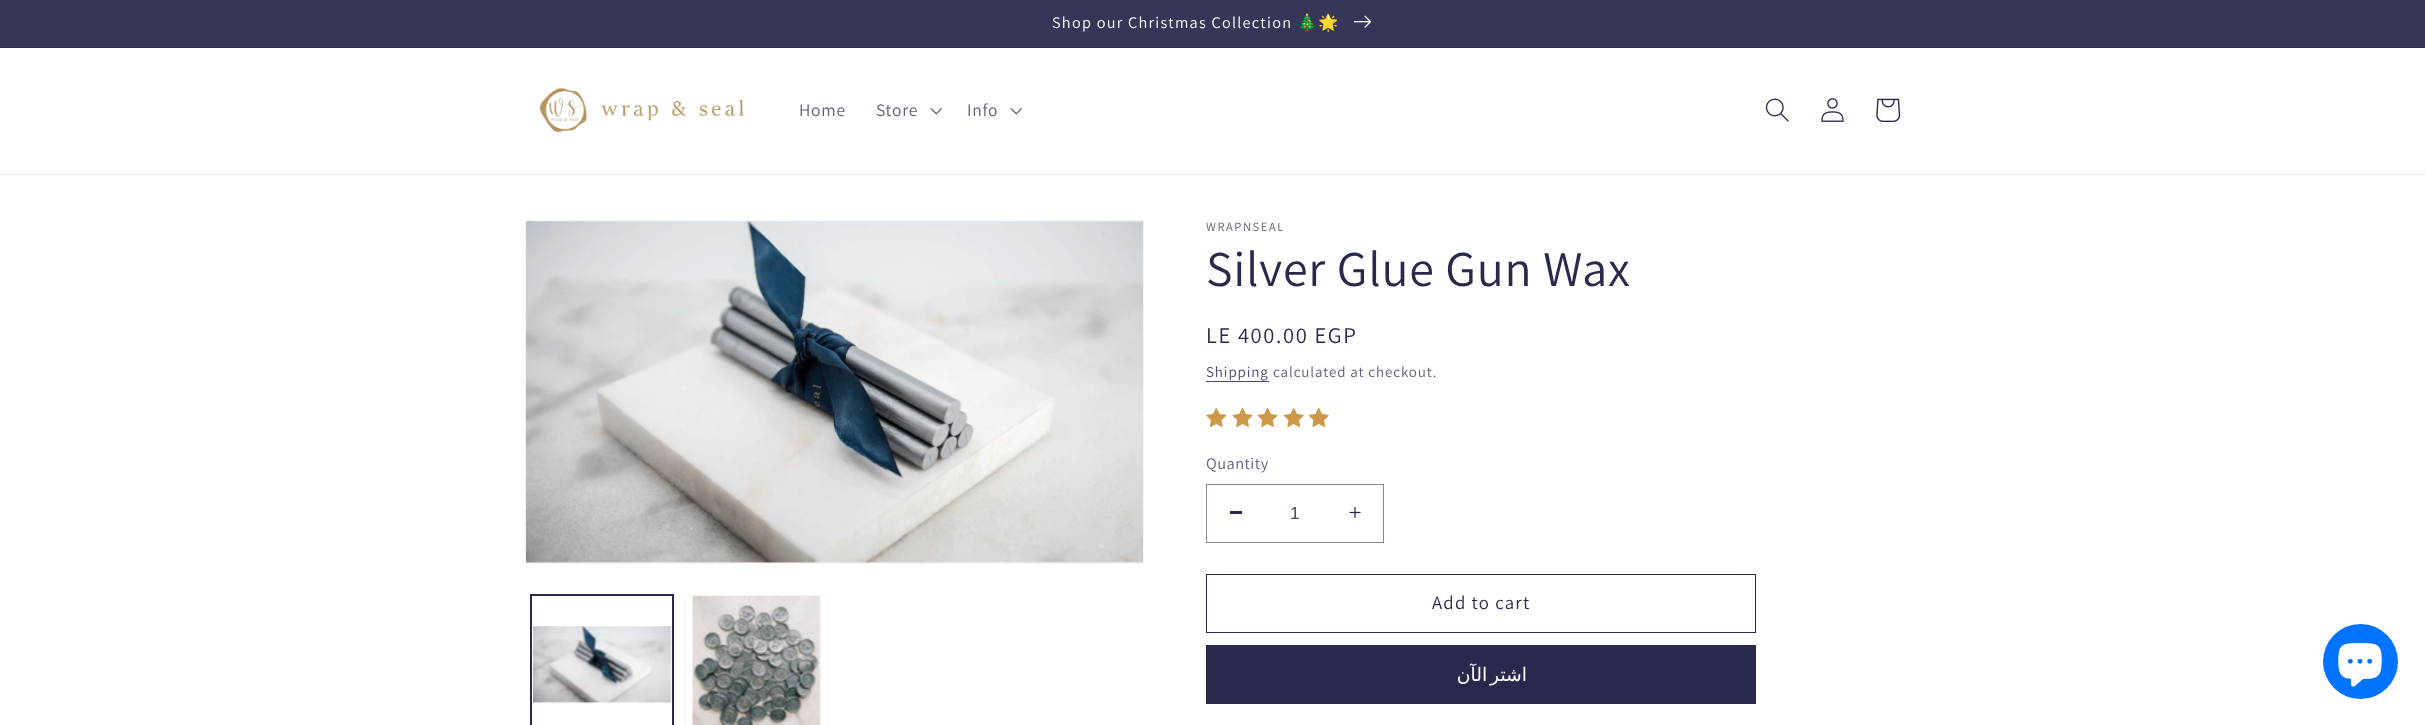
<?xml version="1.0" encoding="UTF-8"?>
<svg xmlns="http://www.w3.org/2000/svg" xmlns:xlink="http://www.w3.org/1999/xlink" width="2425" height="725">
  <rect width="100%" height="100%" fill="#ffffff" />
  <rect y="47" width="2425" height="1" fill="#29294d" />
  <rect y="46" width="2425" height="1" fill="#3a3a5b" />
  <rect width="2425" height="46" fill="#363658" />
  <image x="1354" y="15" width="18" height="13" xlink:href="image1.png" />
  <rect y="174" width="2425" height="1" fill="#eeeef1" />
  <image x="539" y="87" width="205" height="46" xlink:href="image2.png" />
  <image x="930" y="108" width="12" height="7" xlink:href="image3.png" />
  <image x="1010" y="108" width="12" height="7" xlink:href="image3.png" />
  <image x="1765" y="98" width="24" height="24" xlink:href="image4.png" />
  <image x="1821" y="98" width="23" height="24" xlink:href="image5.png" />
  <image x="1876" y="98" width="25" height="24" xlink:href="image6.png" />
  <rect x="525.5" y="220.5" width="618" height="343" fill="none" stroke="#f4f4f6" />
  <image x="526" y="221" width="617" height="342" xlink:href="image7.png" />
  <rect x="530.5" y="594.5" width="143" height="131" fill="none" stroke="#29294d" />
  <rect x="531.5" y="595.5" width="141" height="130" fill="none" stroke="#29294d" />
  <image x="533" y="626" width="139" height="78" xlink:href="image8.png" />
  <rect x="685.5" y="595.5" width="142" height="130" fill="none" stroke="#f4f4f6" />
  <image x="692" y="596" width="129" height="129" xlink:href="image9.png" />
  <rect x="1206" y="381" width="63" height="1" fill="#494968" />
  <image x="1206" y="408" width="21" height="19" xlink:href="image10.png" />
  <image x="1232" y="408" width="21" height="19" xlink:href="image11.png" />
  <image x="1257" y="408" width="21" height="19" xlink:href="image11.png" />
  <image x="1283" y="408" width="21" height="19" xlink:href="image12.png" />
  <image x="1308" y="408" width="21" height="19" xlink:href="image12.png" />
  <rect x="1230" y="511" width="12" height="3" fill="#29294d" />
  <image x="1349" y="506" width="12" height="13" xlink:href="image13.png" />
  <rect x="1206.5" y="484.5" width="177" height="58" fill="none" stroke="#89899d" />
  <rect x="1206.5" y="574.5" width="549" height="58" fill="none" stroke="#29294d" />
  <rect x="1206" y="645" width="550" height="59" fill="#29294d" />
  <circle cx="2360.5" cy="661.5" r="37.5" fill="#0073ff" />
  <image x="2338" y="643" width="44" height="44" xlink:href="image14.png" />
  <text x="1052" y="28" style="font-family: Assistant; font-size: 16.25px; letter-spacing: 1.25px; fill: #ffffff">Shop our Christmas Collection</text>
  <text x="1297" y="28" style="font-family: Noto Color Emoji; font-size: 16.25px; letter-spacing: 1.25px; fill: #ffffff">🎄🌟</text>
  <text x="799" y="116" style="font-family: Assistant; font-size: 17.5px; letter-spacing: 0.75px; fill: #5f5f7a">Home</text>
  <text x="876" y="116" style="font-family: Assistant; font-size: 17.5px; letter-spacing: 0.75px; fill: #5f5f7a">Store</text>
  <text x="967" y="116" style="font-family: Assistant; font-size: 17.5px; letter-spacing: 0.75px; fill: #5f5f7a">Info</text>
  <text x="1206" y="231" style="font-family: Assistant; font-size: 12.5px; letter-spacing: 1.6px; fill: #5f5f7a">WRAPNSEAL</text>
  <text x="1206" y="286" style="font-family: Assistant; font-size: 50px; letter-spacing: 0.75px; fill: #29294d">Silver Glue Gun Wax</text>
  <text x="1206" y="343" style="font-family: Assistant; font-size: 22.5px; letter-spacing: 1.6px; fill: #29294d">LE 400.00 EGP</text>
  <text x="1206" y="377" style="font-family: Assistant; font-size: 15px; letter-spacing: 0.9px; fill: #494968">Shipping</text>
  <text x="1273" y="377" style="font-family: Assistant; font-size: 15px; letter-spacing: 0.9px; fill: #5f5f7a">calculated at checkout.</text>
  <text x="1206" y="469" style="font-family: Assistant; font-size: 16.25px; letter-spacing: 0.5px; fill: #5f5f7a">Quantity</text>
  <text x="1290" y="519" style="font-family: Liberation Sans; font-size: 17.5px; fill: #494968">1</text>
  <text x="1432" y="609" style="font-family: Assistant; font-size: 18.75px; letter-spacing: 1.25px; fill: #29294d">Add to cart</text>
  <text x="1527" y="681" word-spacing="-3" style="font-family: DejaVu Sans; font-size: 18.75px; letter-spacing: 1.25px; direction: rtl; fill: #ffffff">اشتر الآن</text>
</svg>
